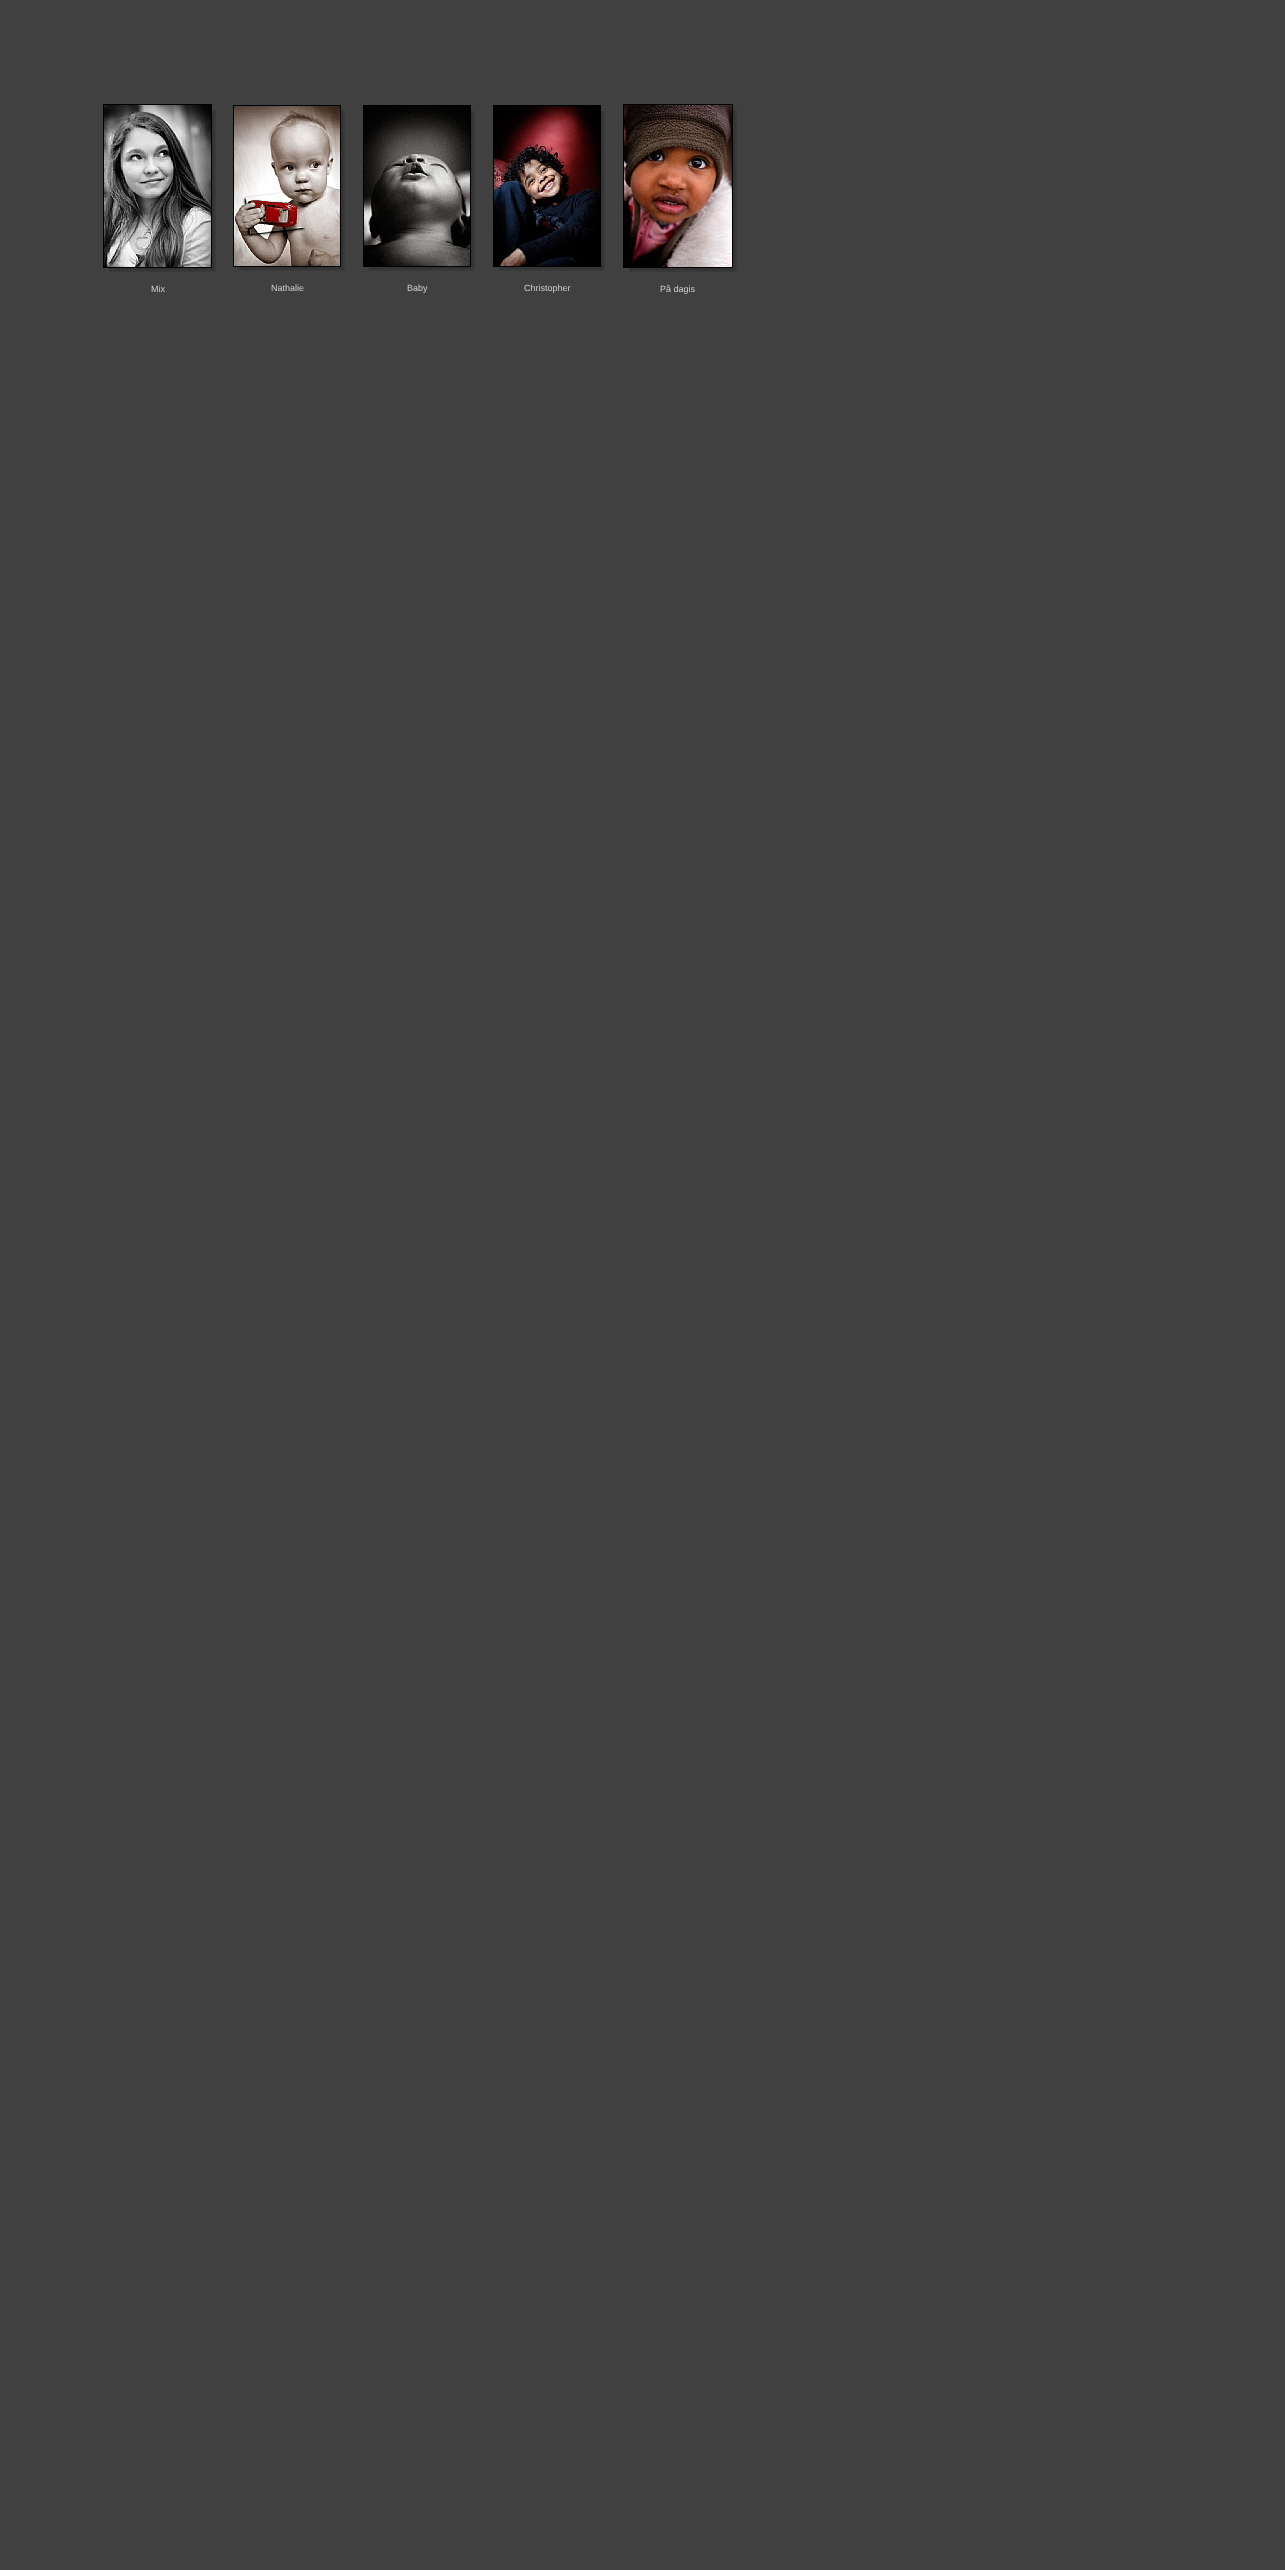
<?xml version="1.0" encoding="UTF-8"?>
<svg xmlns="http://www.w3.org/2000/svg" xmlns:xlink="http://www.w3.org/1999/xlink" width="1285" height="2570">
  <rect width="100%" height="100%" fill="#404040" />
  <image x="109" y="110" width="107" height="162" xlink:href="image1.png" />
  <rect x="103.5" y="104.5" width="108" height="163" fill="none" stroke="#000000" />
  <image x="104" y="105" width="107" height="162" xlink:href="image2.png" />
  <image x="239" y="111" width="106" height="160" xlink:href="image3.png" />
  <rect x="233.5" y="105.5" width="107" height="161" fill="none" stroke="#000000" />
  <image x="234" y="106" width="106" height="160" xlink:href="image4.png" />
  <image x="369" y="111" width="106" height="160" xlink:href="image3.png" />
  <rect x="363.5" y="105.5" width="107" height="161" fill="none" stroke="#000000" />
  <image x="364" y="106" width="106" height="160" xlink:href="image5.png" />
  <image x="499" y="111" width="106" height="160" xlink:href="image3.png" />
  <rect x="493.5" y="105.5" width="107" height="161" fill="none" stroke="#000000" />
  <image x="494" y="106" width="106" height="160" xlink:href="image6.png" />
  <image x="629" y="110" width="108" height="162" xlink:href="image7.png" />
  <rect x="623.5" y="104.5" width="109" height="163" fill="none" stroke="#000000" />
  <image x="624" y="105" width="108" height="162" xlink:href="image8.png" />
  <text x="151" y="292" style="font-family: Liberation Sans; font-size: 9px; fill: #cccccc">Mix</text>
  <text x="271" y="291" style="font-family: Liberation Sans; font-size: 9px; fill: #cccccc">Nathalie</text>
  <text x="407" y="291" style="font-family: Liberation Sans; font-size: 9px; fill: #cccccc">Baby</text>
  <text x="524" y="291" style="font-family: Liberation Sans; font-size: 9px; fill: #cccccc">Christopher</text>
  <text x="660" y="292" style="font-family: Liberation Sans; font-size: 9px; fill: #cccccc">På dagis</text>
</svg>
